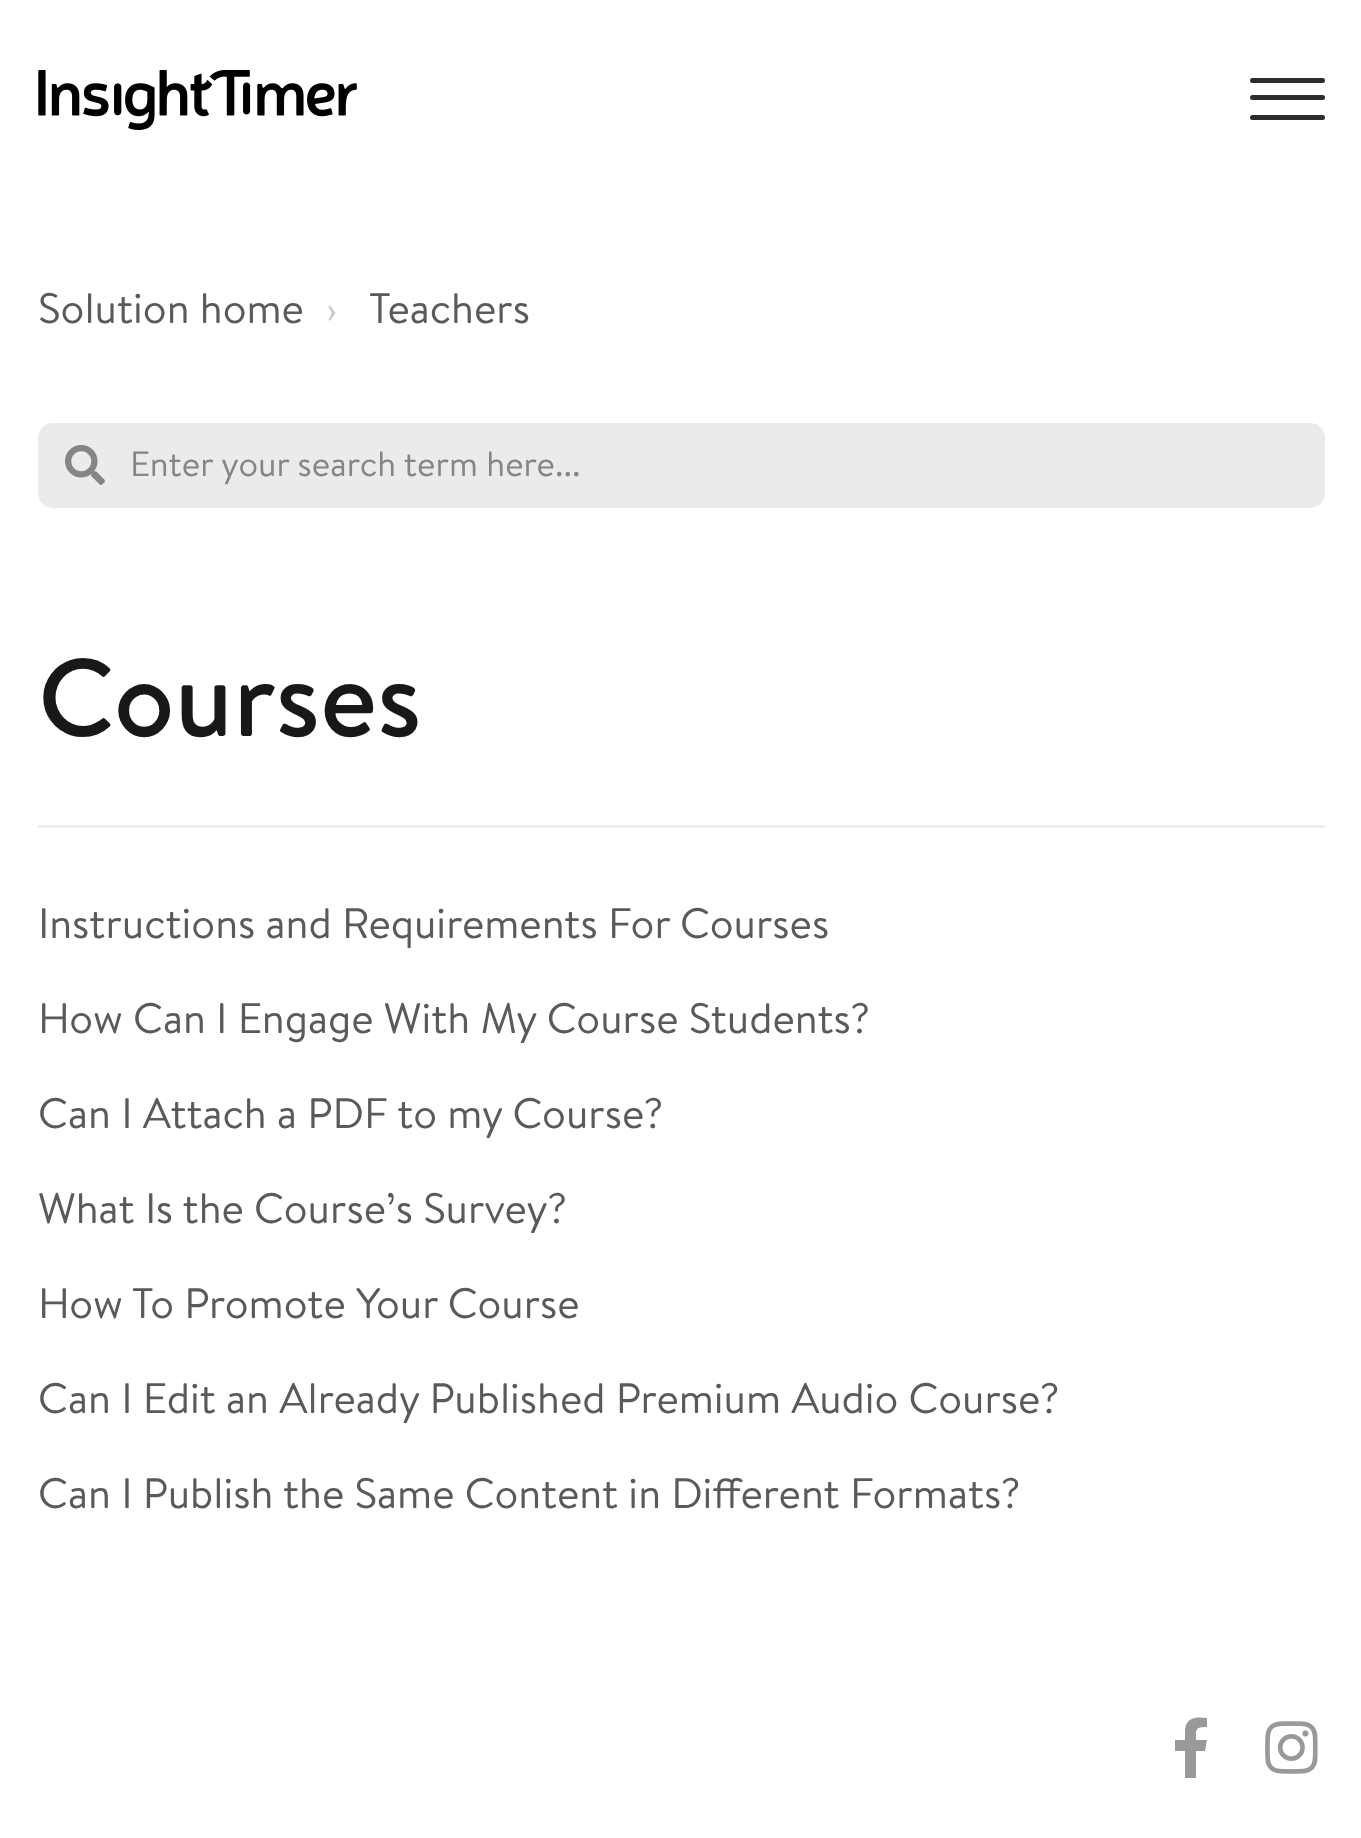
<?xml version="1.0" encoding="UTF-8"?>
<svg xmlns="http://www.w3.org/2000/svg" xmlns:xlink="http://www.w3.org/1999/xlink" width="1361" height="1838">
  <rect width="100%" height="100%" fill="#ffffff" />
  <image x="38" y="70" width="319" height="60" xlink:href="image1.png" />
  <rect x="1250" y="95" width="75" height="5" rx="2.5" fill="#2d2d2d" />
  <rect x="1250" y="78" width="75" height="5" rx="2.5" fill="#2d2d2d" />
  <rect x="1250" y="115" width="75" height="5" rx="2.5" fill="#2d2d2d" />
  <rect x="39.5" y="424.5" width="1284" height="82" rx="13.5" fill="#ecebeb" stroke="#ecebeb" stroke-width="3" />
  <image x="65" y="445" width="40" height="40" xlink:href="image2.png" />
  <rect x="38" y="825" width="1287" height="3" fill="#eceeef" />
  <path d="M 1205 1751 h -9 v 27 h -11 v -27 h -10 v -11 h 10 v -11 c 2 -13 13 -12 22 -11 v 9 c -12 0 -11 2 -11 13 h 11 z" fill="#999999" />
  <image x="1265" y="1721" width="53" height="53" xlink:href="image3.png" />
  <text x="38" y="323" style="font-family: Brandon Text; font-size: 42.5px; fill: #5a5a5a">Solution home</text>
  <text x="326" y="323" style="font-family: Brandon Text; font-size: 42.5px; fill: #cccccc">›</text>
  <text x="369" y="323" style="font-family: Brandon Text; font-size: 42.5px; fill: #5a5a5a">Teachers</text>
  <text x="130" y="476" style="font-family: Brandon Text; font-size: 35px; fill: #858585">Enter your search term here...</text>
  <text x="38" y="736" style="font-family: Brandon Text; font-size: 110px; font-weight: 500; fill: #181818">Courses</text>
  <text x="38" y="938" style="font-family: Brandon Text; font-size: 42.5px; fill: #5a5a5a">Instructions and Requirements For Courses</text>
  <text x="38" y="1033" style="font-family: Brandon Text; font-size: 42.5px; fill: #5a5a5a">How Can I Engage With My Course Students?</text>
  <text x="38" y="1128" style="font-family: Brandon Text; font-size: 42.5px; fill: #5a5a5a">Can I Attach a PDF to my Course?</text>
  <text x="38" y="1223" style="font-family: Brandon Text; font-size: 42.5px; fill: #5a5a5a">What Is the Course’s Survey?</text>
  <text x="38" y="1318" style="font-family: Brandon Text; font-size: 42.5px; fill: #5a5a5a">How To Promote Your Course</text>
  <text x="38" y="1413" style="font-family: Brandon Text; font-size: 42.5px; fill: #5a5a5a">Can I Edit an Already Published Premium Audio Course?</text>
  <text x="38" y="1508" style="font-family: Brandon Text; font-size: 42.5px; fill: #5a5a5a">Can I Publish the Same Content in Different Formats?</text>
</svg>
